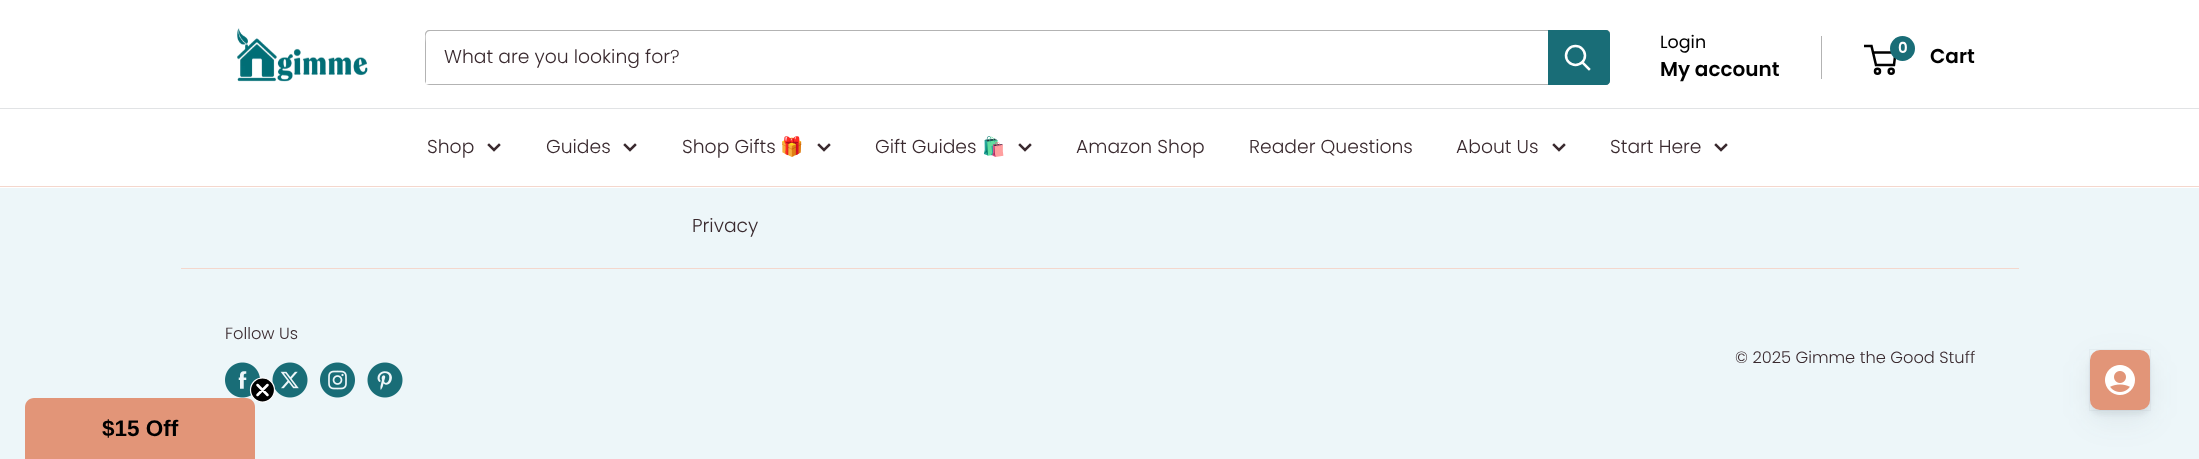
<?xml version="1.0" encoding="UTF-8"?>
<svg xmlns="http://www.w3.org/2000/svg" xmlns:xlink="http://www.w3.org/1999/xlink" width="2199" height="459">
  <rect width="100%" height="100%" fill="#edf6f9" />
  <rect width="2199" height="108" fill="#ffffff" />
  <rect y="108" width="2199" height="1" fill="#e1e3e5" />
  <image x="237" y="28" width="131" height="54" xlink:href="image1.png" />
  <path d="M 426 84 c 1 0 2 1 3 1 h 1177 c 2 0 4 -2 4 -4 v -47 c 0 -1 0 -2 -1 -3 v 49 c 0 2 -2 4 -4 4 h -1177 z" fill="#b3b3b3" />
  <path d="M 430 31 h 1179 c -1 -1 -2 -1 -3 -1 h -1177 c -2 0 -4 2 -4 4 v 47 c 0 1 1 2 1 3 v -41 c 0 -3 -2 -12 4 -12 z" fill="#b3b3b3" />
  <path d="M 1548 30 h 58 c 2 0 4 2 4 4 v 47 c 0 2 -2 4 -4 4 h -58 z" fill="#196d77" />
  <path d="M 1589 69 l -6.5 -6.5" fill="none" stroke="#ffffff" stroke-width="2.5" stroke-linecap="square" />
  <circle cx="1575.5" cy="55.5" r="9.5" fill="none" stroke="#ffffff" stroke-width="2.5" />
  <rect x="1821" y="36" width="1" height="43" fill="#b3b3b3" />
  <circle cx="1877.5" cy="71.2" r="2.5" fill="none" stroke="#000000" stroke-width="2.5" />
  <circle cx="1891.2" cy="71.2" r="2.5" fill="none" stroke="#000000" stroke-width="2.5" />
  <path d="M 1873 52.5 h 22.5 l -1.5 12.5 h -18 l -4.5 -19 h -7.5" fill="none" stroke="#000000" stroke-width="2.5" />
  <circle cx="1902.5" cy="48.5" r="12.5" fill="#196d77" />
  <rect y="109" width="2199" height="79" fill="#ffffff" />
  <rect y="186" width="2199" height="1" fill="#f4d7cd" />
  <path d="M 499 145 l -5 5 l -5 -5" fill="none" stroke="#3a2a2f" stroke-width="2.5" stroke-linecap="square" />
  <path d="M 635 145 l -5 5 l -5 -5" fill="none" stroke="#3a2a2f" stroke-width="2.5" stroke-linecap="square" />
  <path d="M 829 145 l -5 5 l -5 -5" fill="none" stroke="#3a2a2f" stroke-width="2.5" stroke-linecap="square" />
  <path d="M 1030 145 l -5 5 l -5 -5" fill="none" stroke="#3a2a2f" stroke-width="2.5" stroke-linecap="square" />
  <path d="M 1564 145 l -5 5 l -5 -5" fill="none" stroke="#3a2a2f" stroke-width="2.5" stroke-linecap="square" />
  <path d="M 1726 145 l -5 5 l -5 -5" fill="none" stroke="#3a2a2f" stroke-width="2.5" stroke-linecap="square" />
  <rect x="181" y="268" width="1838" height="1" fill="#f4d7cd" />
  <image x="225" y="362" width="35" height="36" xlink:href="image2.png" />
  <image x="272" y="362" width="36" height="36" xlink:href="image3.png" />
  <image x="320" y="362" width="35" height="36" xlink:href="image4.png" />
  <image x="367" y="362" width="36" height="36" xlink:href="image5.png" />
  <path d="M 34 398 h 212 c 5 0 9 4 9 9 v 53 h -230 v -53 c 0 -5 4 -9 9 -9 z" fill="#e29578" />
  <circle cx="262.5" cy="390" r="12" fill="#000000" stroke="#ffffff" stroke-width="1.2" />
  <path d="M 257.5 385 l 10 10 m -10 0 l 10 -10 z" fill="none" stroke="#ffffff" stroke-width="2.5" stroke-linecap="round" stroke-linejoin="round" />
  <rect x="2090" y="360" width="60" height="60" rx="10" fill="#373f47" fill-opacity="0.08" filter="blur(15px)" />
  <rect x="2090" y="355" width="60" height="60" rx="10" fill="#373f47" fill-opacity="0.08" filter="blur(2.5px)" />
  <rect x="2089.5" y="349.5" width="61" height="61" fill="none" stroke="#373f47" stroke-opacity="0.04" />
  <rect x="2090" y="350" width="60" height="60" rx="10" fill="#e29578" />
  <image x="2105" y="365" width="30" height="30" xlink:href="image6.png" />
  <text x="444" y="63" style="font-family: Poppins; font-size: 18.75px; font-weight: 300; fill: #3a2a2f">What are you looking for?</text>
  <text x="1660" y="48" style="font-family: Poppins; font-size: 17.5px; fill: #000000">Login</text>
  <text x="1660" y="76" style="font-family: Poppins; font-size: 20px; font-weight: 600; fill: #000000">My account</text>
  <text x="1898" y="53" style="font-family: Poppins; font-size: 15px; font-weight: 600; fill: #ffffff">0</text>
  <text x="1930" y="63" style="font-family: Poppins; font-size: 20px; font-weight: 600; fill: #000000">Cart</text>
  <text x="427" y="153" style="font-family: Poppins; font-size: 18.75px; font-weight: 300; fill: #3a2a2f">Shop</text>
  <text x="546" y="153" style="font-family: Poppins; font-size: 18.75px; font-weight: 300; fill: #3a2a2f">Guides</text>
  <text x="682" y="153" style="font-family: Poppins; font-size: 18.75px; font-weight: 300; fill: #3a2a2f">Shop Gifts</text>
  <text x="780" y="153" style="font-family: Noto Color Emoji; font-size: 18.75px; fill: #3a2a2f">🎁</text>
  <text x="875" y="153" style="font-family: Poppins; font-size: 18.75px; font-weight: 300; fill: #3a2a2f">Gift Guides</text>
  <text x="982" y="153" style="font-family: Noto Color Emoji; font-size: 18.75px; fill: #3a2a2f">🛍️</text>
  <text x="1076" y="153" style="font-family: Poppins; font-size: 18.75px; font-weight: 300; fill: #3a2a2f">Amazon Shop</text>
  <text x="1249" y="153" style="font-family: Poppins; font-size: 18.75px; font-weight: 300; fill: #3a2a2f">Reader Questions</text>
  <text x="1456" y="153" style="font-family: Poppins; font-size: 18.75px; font-weight: 300; fill: #3a2a2f">About Us</text>
  <text x="1610" y="153" style="font-family: Poppins; font-size: 18.75px; font-weight: 300; fill: #3a2a2f">Start Here</text>
  <text x="692" y="232" style="font-family: Poppins; font-size: 18.75px; font-weight: 300; fill: #3a2a2f">Privacy</text>
  <text x="225" y="339" style="font-family: Poppins; font-size: 16.25px; font-weight: 300; fill: #3a2a2f">Follow Us</text>
  <text x="1735" y="363" style="font-family: Poppins; font-size: 16.25px; font-weight: 300; fill: #3a2a2f">© 2025 Gimme the Good Stuff</text>
  <text x="102" y="436" style="font-family: Liberation Sans; font-size: 22.5px; font-weight: bold; fill: #000000">$15 Off</text>
</svg>
